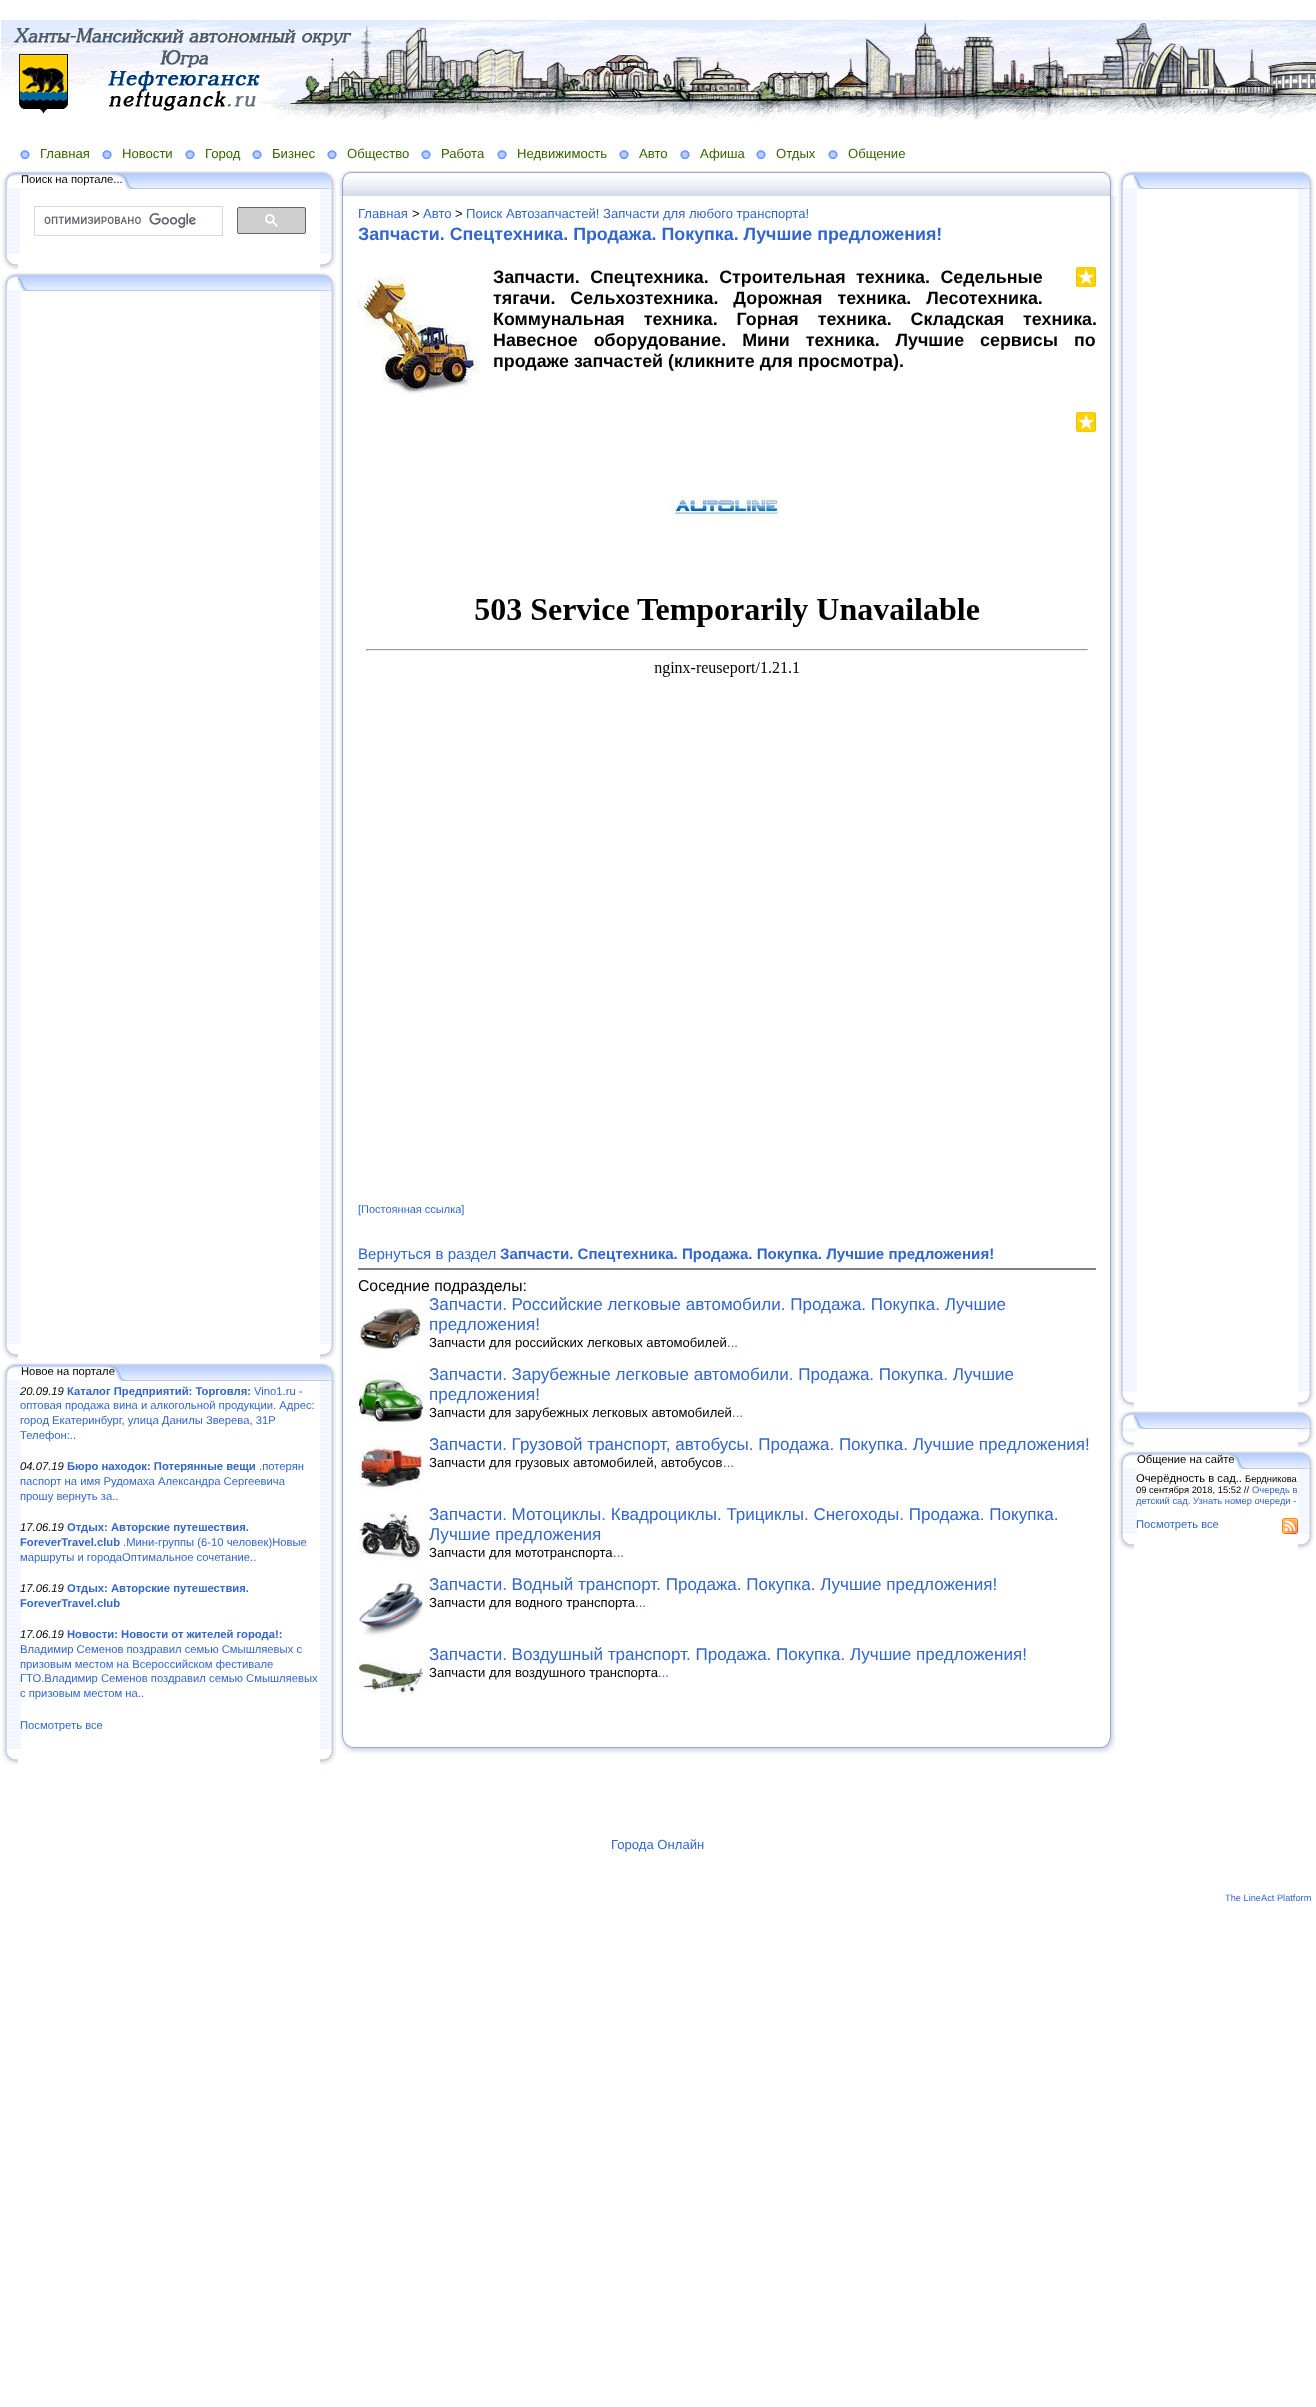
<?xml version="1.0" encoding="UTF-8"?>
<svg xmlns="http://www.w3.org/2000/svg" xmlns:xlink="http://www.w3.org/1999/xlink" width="1316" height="2407">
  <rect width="100%" height="100%" fill="#ffffff" />
  <image x="0" y="20" width="1316" height="100" xlink:href="image1.png" />
  <image x="20" y="150" width="10" height="9" xlink:href="image2.png" />
  <image x="102" y="150" width="10" height="9" xlink:href="image2.png" />
  <image x="185" y="150" width="10" height="9" xlink:href="image2.png" />
  <image x="252" y="150" width="10" height="9" xlink:href="image2.png" />
  <image x="327" y="150" width="10" height="9" xlink:href="image2.png" />
  <image x="421" y="150" width="10" height="9" xlink:href="image2.png" />
  <image x="497" y="150" width="10" height="9" xlink:href="image2.png" />
  <image x="619" y="150" width="10" height="9" xlink:href="image2.png" />
  <image x="680" y="150" width="10" height="9" xlink:href="image2.png" />
  <image x="756" y="150" width="10" height="9" xlink:href="image2.png" />
  <image x="828" y="150" width="10" height="9" xlink:href="image2.png" />
  <image x="15" y="171" width="305" height="18" xlink:href="image3.png" />
  <image x="15" y="173" width="121" height="16" xlink:href="image4.png" />
  <image x="0" y="171" width="15" height="18" xlink:href="image5.png" />
  <image x="320" y="171" width="16" height="18" xlink:href="image6.png" />
  <image x="2" y="189" width="19" height="65" xlink:href="image7.png" />
  <rect x="20" y="192" width="1" height="62" fill="#ffffff" />
  <rect x="34.5" y="206.5" width="188" height="29" fill="none" stroke="#d9d9d9" />
  <image x="44" y="213" width="152" height="15" xlink:href="image8.png" />
  <rect x="237.5" y="207.5" width="68" height="26" rx="1.5" fill="#cecece" stroke="#666666" />
  <image x="265" y="214" width="13" height="13" xlink:href="image9.png" />
  <image x="320" y="189" width="16" height="65" xlink:href="image10.png" />
  <image x="2" y="254" width="16" height="16" xlink:href="image11.png" />
  <image x="320" y="254" width="16" height="16" xlink:href="image12.png" />
  <image x="18" y="273" width="302" height="18" xlink:href="image13.png" />
  <image x="18" y="275" width="13" height="16" xlink:href="image14.png" />
  <image x="0" y="273" width="18" height="18" xlink:href="image15.png" />
  <image x="320" y="273" width="16" height="18" xlink:href="image6.png" />
  <image x="2" y="291" width="19" height="1053" xlink:href="image16.png" />
  <image x="320" y="291" width="16" height="1053" xlink:href="image17.png" />
  <image x="2" y="1344" width="16" height="16" xlink:href="image11.png" />
  <image x="320" y="1344" width="16" height="16" xlink:href="image12.png" />
  <image x="15" y="1363" width="305" height="18" xlink:href="image3.png" />
  <image x="15" y="1365" width="113" height="16" xlink:href="image18.png" />
  <image x="0" y="1363" width="15" height="18" xlink:href="image5.png" />
  <image x="320" y="1363" width="16" height="18" xlink:href="image6.png" />
  <image x="2" y="1381" width="19" height="368" xlink:href="image19.png" />
  <image x="320" y="1381" width="16" height="368" xlink:href="image20.png" />
  <image x="2" y="1749" width="16" height="16" xlink:href="image11.png" />
  <image x="320" y="1749" width="16" height="16" xlink:href="image12.png" />
  <image x="351" y="171" width="751" height="25" xlink:href="image21.png" />
  <image x="1102" y="171" width="14" height="25" xlink:href="image22.png" />
  <image x="338" y="171" width="13" height="25" xlink:href="image23.png" />
  <image x="339" y="196" width="4" height="1539" xlink:href="image24.png" />
  <image x="1110" y="196" width="6" height="1539" xlink:href="image25.png" />
  <image x="1076" y="267" width="20" height="20" xlink:href="image26.png" />
  <image x="358" y="277" width="120" height="118" xlink:href="image27.png" />
  <image x="1076" y="412" width="20" height="20" xlink:href="image26.png" />
  <image x="667" y="496" width="112" height="32" xlink:href="image28.png" />
  <image x="366" y="598" width="722" height="79" xlink:href="image29.png" />
  <rect x="358" y="1268" width="738" height="2" fill="#808080" />
  <image x="359" y="1308" width="63" height="43" xlink:href="image30.png" />
  <image x="359" y="1373" width="64" height="54" xlink:href="image31.png" />
  <image x="359" y="1444" width="64" height="47" xlink:href="image32.png" />
  <image x="359" y="1512" width="64" height="49" xlink:href="image33.png" />
  <image x="359" y="1583" width="64" height="53" xlink:href="image34.png" />
  <image x="359" y="1659" width="64" height="35" xlink:href="image35.png" />
  <image x="353" y="1747" width="748" height="7" xlink:href="image36.png" />
  <image x="1101" y="1735" width="15" height="19" xlink:href="image37.png" />
  <image x="338" y="1735" width="15" height="19" xlink:href="image38.png" />
  <image x="1134" y="171" width="164" height="18" xlink:href="image39.png" />
  <image x="1134" y="173" width="13" height="16" xlink:href="image14.png" />
  <image x="1116" y="171" width="18" height="18" xlink:href="image15.png" />
  <image x="1298" y="171" width="16" height="18" xlink:href="image6.png" />
  <image x="1118" y="189" width="19" height="1203" xlink:href="image40.png" />
  <image x="1298" y="189" width="16" height="1203" xlink:href="image41.png" />
  <image x="1118" y="1392" width="16" height="16" xlink:href="image11.png" />
  <image x="1298" y="1392" width="16" height="16" xlink:href="image12.png" />
  <image x="1134" y="1411" width="164" height="18" xlink:href="image39.png" />
  <image x="1134" y="1413" width="13" height="16" xlink:href="image14.png" />
  <image x="1116" y="1411" width="18" height="18" xlink:href="image15.png" />
  <image x="1298" y="1411" width="16" height="18" xlink:href="image6.png" />
  <image x="1118" y="1429" width="19" height="3" xlink:href="image42.png" />
  <image x="1298" y="1429" width="16" height="3" xlink:href="image43.png" />
  <image x="1118" y="1432" width="16" height="16" xlink:href="image11.png" />
  <image x="1298" y="1432" width="16" height="16" xlink:href="image12.png" />
  <image x="1131" y="1451" width="167" height="18" xlink:href="image44.png" />
  <image x="1131" y="1453" width="117" height="16" xlink:href="image45.png" />
  <image x="1116" y="1451" width="15" height="18" xlink:href="image5.png" />
  <image x="1298" y="1451" width="16" height="18" xlink:href="image6.png" />
  <image x="1118" y="1469" width="19" height="65" xlink:href="image7.png" />
  <image x="1282" y="1518" width="16" height="16" xlink:href="image46.png" />
  <image x="1298" y="1469" width="16" height="65" xlink:href="image10.png" />
  <image x="1118" y="1534" width="16" height="16" xlink:href="image11.png" />
  <image x="1298" y="1534" width="16" height="16" xlink:href="image12.png" />
  <text x="40" y="158" style="font-family: Liberation Sans; font-size: 13.1px; fill: #336600">Главная</text>
  <text x="122" y="158" style="font-family: Liberation Sans; font-size: 13.1px; fill: #336600">Новости</text>
  <text x="205" y="158" style="font-family: Liberation Sans; font-size: 13.1px; fill: #336600">Город</text>
  <text x="272" y="158" style="font-family: Liberation Sans; font-size: 13.1px; fill: #336600">Бизнес</text>
  <text x="347" y="158" style="font-family: Liberation Sans; font-size: 13.1px; fill: #336600">Общество</text>
  <text x="441" y="158" style="font-family: Liberation Sans; font-size: 13.1px; fill: #336600">Работа</text>
  <text x="517" y="158" style="font-family: Liberation Sans; font-size: 13.1px; fill: #336600">Недвижимость</text>
  <text x="639" y="158" style="font-family: Liberation Sans; font-size: 13.1px; fill: #336600">Авто</text>
  <text x="700" y="158" style="font-family: Liberation Sans; font-size: 13.1px; fill: #336600">Афиша</text>
  <text x="776" y="158" style="font-family: Liberation Sans; font-size: 13.1px; fill: #336600">Отдых</text>
  <text x="848" y="158" style="font-family: Liberation Sans; font-size: 13.1px; fill: #336600">Общение</text>
  <text x="21" y="183" style="font-family: Liberation Sans; font-size: 11.25px; fill: #000000">Поиск на портале...</text>
  <text x="21" y="1375" style="font-family: Liberation Sans; font-size: 11.25px; fill: #000000">Новое на портале</text>
  <text x="20" y="1395" style="font-family: Liberation Sans; font-size: 11.25px; font-style: italic; fill: #000000">20.09.19</text>
  <text x="67" y="1395" style="font-family: Liberation Sans; font-size: 11.25px; font-weight: bold; fill: #3366cc">Каталог Предприятий: Торговля:</text>
  <text x="254" y="1395" style="font-family: Liberation Sans; font-size: 11.25px; fill: #3366cc">Vino1.ru -</text>
  <text x="20" y="1409" style="font-family: Liberation Sans; font-size: 11.25px; fill: #3366cc">оптовая продажа вина и алкогольной продукции. Адрес:</text>
  <text x="20" y="1424" style="font-family: Liberation Sans; font-size: 11.25px; fill: #3366cc">город Екатеринбург, улица Данилы Зверева, 31Р</text>
  <text x="20" y="1439" style="font-family: Liberation Sans; font-size: 11.25px; fill: #3366cc">Телефон:..</text>
  <text x="20" y="1470" style="font-family: Liberation Sans; font-size: 11.25px; font-style: italic; fill: #000000">04.07.19</text>
  <text x="67" y="1470" style="font-family: Liberation Sans; font-size: 11.25px; font-weight: bold; fill: #3366cc">Бюро находок: Потерянные вещи</text>
  <text x="259" y="1470" style="font-family: Liberation Sans; font-size: 11.25px; fill: #3366cc">.потерян</text>
  <text x="20" y="1485" style="font-family: Liberation Sans; font-size: 11.25px; fill: #3366cc">паспорт на имя Рудомаха Александра Сергеевича</text>
  <text x="20" y="1500" style="font-family: Liberation Sans; font-size: 11.25px; fill: #3366cc">прошу вернуть за..</text>
  <text x="20" y="1531" style="font-family: Liberation Sans; font-size: 11.25px; font-style: italic; fill: #000000">17.06.19</text>
  <text x="67" y="1531" style="font-family: Liberation Sans; font-size: 11.25px; font-weight: bold; fill: #3366cc">Отдых: Авторские путешествия.</text>
  <text x="20" y="1546" style="font-family: Liberation Sans; font-size: 11.25px; font-weight: bold; fill: #3366cc">ForeverTravel.club</text>
  <text x="123" y="1546" style="font-family: Liberation Sans; font-size: 11.25px; fill: #3366cc">.Мини-группы (6-10 человек)Новые</text>
  <text x="20" y="1561" style="font-family: Liberation Sans; font-size: 11.25px; fill: #3366cc">маршруты и городаОптимальное сочетание..</text>
  <text x="20" y="1592" style="font-family: Liberation Sans; font-size: 11.25px; font-style: italic; fill: #000000">17.06.19</text>
  <text x="67" y="1592" style="font-family: Liberation Sans; font-size: 11.25px; font-weight: bold; fill: #3366cc">Отдых: Авторские путешествия.</text>
  <text x="20" y="1607" style="font-family: Liberation Sans; font-size: 11.25px; font-weight: bold; fill: #3366cc">ForeverTravel.club</text>
  <text x="20" y="1638" style="font-family: Liberation Sans; font-size: 11.25px; font-style: italic; fill: #000000">17.06.19</text>
  <text x="67" y="1638" style="font-family: Liberation Sans; font-size: 11.25px; font-weight: bold; fill: #3366cc">Новости: Новости от жителей города!:</text>
  <text x="20" y="1653" style="font-family: Liberation Sans; font-size: 11.25px; fill: #3366cc">Владимир Семенов поздравил семью Смышляевых с</text>
  <text x="20" y="1668" style="font-family: Liberation Sans; font-size: 11.25px; fill: #3366cc">призовым местом на Всероссийском фестивале</text>
  <text x="20" y="1682" style="font-family: Liberation Sans; font-size: 11.25px; fill: #3366cc">ГТО.Владимир Семенов поздравил семью Смышляевых</text>
  <text x="20" y="1697" style="font-family: Liberation Sans; font-size: 11.25px; fill: #3366cc">с призовым местом на..</text>
  <text x="20" y="1729" style="font-family: Liberation Sans; font-size: 11.25px; fill: #3366cc">Посмотреть все</text>
  <text x="358" y="218" style="font-family: Liberation Sans; font-size: 13.1px; fill: #3366cc">Главная</text>
  <text x="412" y="218" style="font-family: Liberation Sans; font-size: 13.1px; fill: #000000">&gt;</text>
  <text x="423" y="218" style="font-family: Liberation Sans; font-size: 13.1px; fill: #3366cc">Авто</text>
  <text x="455" y="218" style="font-family: Liberation Sans; font-size: 13.1px; fill: #000000">&gt;</text>
  <text x="466" y="218" style="font-family: Liberation Sans; font-size: 13.1px; fill: #3366cc">Поиск Автозапчастей! Запчасти для любого транспорта!</text>
  <text x="358" y="240" style="font-family: Liberation Sans; font-size: 17.85px; font-weight: bold; fill: #3366cc">Запчасти. Спецтехника. Продажа. Покупка. Лучшие предложения!</text>
  <text x="493" y="283" word-spacing="5.5" style="font-family: Liberation Sans; font-size: 17.85px; font-weight: bold; fill: #000000">Запчасти. Спецтехника. Строительная техника. Седельные</text>
  <text x="493" y="304" word-spacing="10" style="font-family: Liberation Sans; font-size: 17.85px; font-weight: bold; fill: #000000">тягачи. Сельхозтехника. Дорожная техника. Лесотехника.</text>
  <text x="493" y="325" word-spacing="14" style="font-family: Liberation Sans; font-size: 17.85px; font-weight: bold; fill: #000000">Коммунальная техника. Горная техника. Складская техника.</text>
  <text x="493" y="346" word-spacing="11" style="font-family: Liberation Sans; font-size: 17.85px; font-weight: bold; fill: #000000">Навесное оборудование. Мини техника. Лучшие сервисы по</text>
  <text x="493" y="367" style="font-family: Liberation Sans; font-size: 17.85px; font-weight: bold; fill: #000000">продаже запчастей (кликните для просмотра).</text>
  <text x="358" y="1213" style="font-family: Liberation Sans; font-size: 11px; fill: #3366cc">[Постоянная ссылка]</text>
  <text x="358" y="1259" style="font-family: Liberation Sans; font-size: 15.1px; fill: #3366cc">Вернуться в раздел</text>
  <text x="500" y="1259" style="font-family: Liberation Sans; font-size: 15.1px; font-weight: bold; fill: #3366cc">Запчасти. Спецтехника. Продажа. Покупка. Лучшие предложения!</text>
  <text x="358" y="1291" style="font-family: Liberation Sans; font-size: 15.75px; fill: #000000">Соседние подразделы:</text>
  <text x="429" y="1310" style="font-family: Liberation Sans; font-size: 17.05px; fill: #3366cc">Запчасти. Российские легковые автомобили. Продажа. Покупка. Лучшие</text>
  <text x="429" y="1330" style="font-family: Liberation Sans; font-size: 17.05px; fill: #3366cc">предложения!</text>
  <text x="429" y="1347" style="font-family: Liberation Sans; font-size: 13.1px; fill: #000000">Запчасти для российских легковых автомобилей</text>
  <text x="727" y="1347" style="font-family: Liberation Sans; font-size: 13.1px; fill: #3366cc">...</text>
  <text x="429" y="1380" style="font-family: Liberation Sans; font-size: 17.05px; fill: #3366cc">Запчасти. Зарубежные легковые автомобили. Продажа. Покупка. Лучшие</text>
  <text x="429" y="1400" style="font-family: Liberation Sans; font-size: 17.05px; fill: #3366cc">предложения!</text>
  <text x="429" y="1417" style="font-family: Liberation Sans; font-size: 13.1px; fill: #000000">Запчасти для зарубежных легковых автомобилей</text>
  <text x="732" y="1417" style="font-family: Liberation Sans; font-size: 13.1px; fill: #3366cc">...</text>
  <text x="429" y="1450" style="font-family: Liberation Sans; font-size: 17.05px; fill: #3366cc">Запчасти. Грузовой транспорт, автобусы. Продажа. Покупка. Лучшие предложения!</text>
  <text x="429" y="1467" style="font-family: Liberation Sans; font-size: 13.1px; fill: #000000">Запчасти для грузовых автомобилей, автобусов</text>
  <text x="723" y="1467" style="font-family: Liberation Sans; font-size: 13.1px; fill: #3366cc">...</text>
  <text x="429" y="1520" style="font-family: Liberation Sans; font-size: 17.05px; fill: #3366cc">Запчасти. Мотоциклы. Квадроциклы. Трициклы. Снегоходы. Продажа. Покупка.</text>
  <text x="429" y="1540" style="font-family: Liberation Sans; font-size: 17.05px; fill: #3366cc">Лучшие предложения</text>
  <text x="429" y="1557" style="font-family: Liberation Sans; font-size: 13.1px; fill: #000000">Запчасти для мототранспорта</text>
  <text x="613" y="1557" style="font-family: Liberation Sans; font-size: 13.1px; fill: #3366cc">...</text>
  <text x="429" y="1590" style="font-family: Liberation Sans; font-size: 17.05px; fill: #3366cc">Запчасти. Водный транспорт. Продажа. Покупка. Лучшие предложения!</text>
  <text x="429" y="1607" style="font-family: Liberation Sans; font-size: 13.1px; fill: #000000">Запчасти для водного транспорта</text>
  <text x="635" y="1607" style="font-family: Liberation Sans; font-size: 13.1px; fill: #3366cc">...</text>
  <text x="429" y="1660" style="font-family: Liberation Sans; font-size: 17.05px; fill: #3366cc">Запчасти. Воздушный транспорт. Продажа. Покупка. Лучшие предложения!</text>
  <text x="429" y="1677" style="font-family: Liberation Sans; font-size: 13.1px; fill: #000000">Запчасти для воздушного транспорта</text>
  <text x="658" y="1677" style="font-family: Liberation Sans; font-size: 13.1px; fill: #3366cc">...</text>
  <text x="1137" y="1463" style="font-family: Liberation Sans; font-size: 11.25px; fill: #000000">Общение на сайте</text>
  <text x="1136" y="1482" style="font-family: Liberation Sans; font-size: 11.25px; fill: #000000">Очерёдность в сад..</text>
  <text x="1245" y="1482" style="font-family: Liberation Sans; font-size: 9.4px; fill: #000000">Бердникова</text>
  <text x="1136" y="1493" style="font-family: Liberation Sans; font-size: 9.4px; fill: #000000">09 сентября 2018, 15:52 //</text>
  <text x="1252" y="1493" style="font-family: Liberation Sans; font-size: 9.4px; fill: #3366cc">Очередь в</text>
  <text x="1136" y="1504" style="font-family: Liberation Sans; font-size: 9.4px; fill: #3366cc">детский сад. Узнать номер очереди -</text>
  <text x="1136" y="1528" style="font-family: Liberation Sans; font-size: 11.25px; fill: #3366cc">Посмотреть все</text>
  <text x="611" y="1849" style="font-family: Liberation Sans; font-size: 13.1px; fill: #3366cc">Города Онлайн</text>
  <text x="1225" y="1901" style="font-family: Liberation Sans; font-size: 9.25px; fill: #3366cc">The LineAct Platform</text>
</svg>
